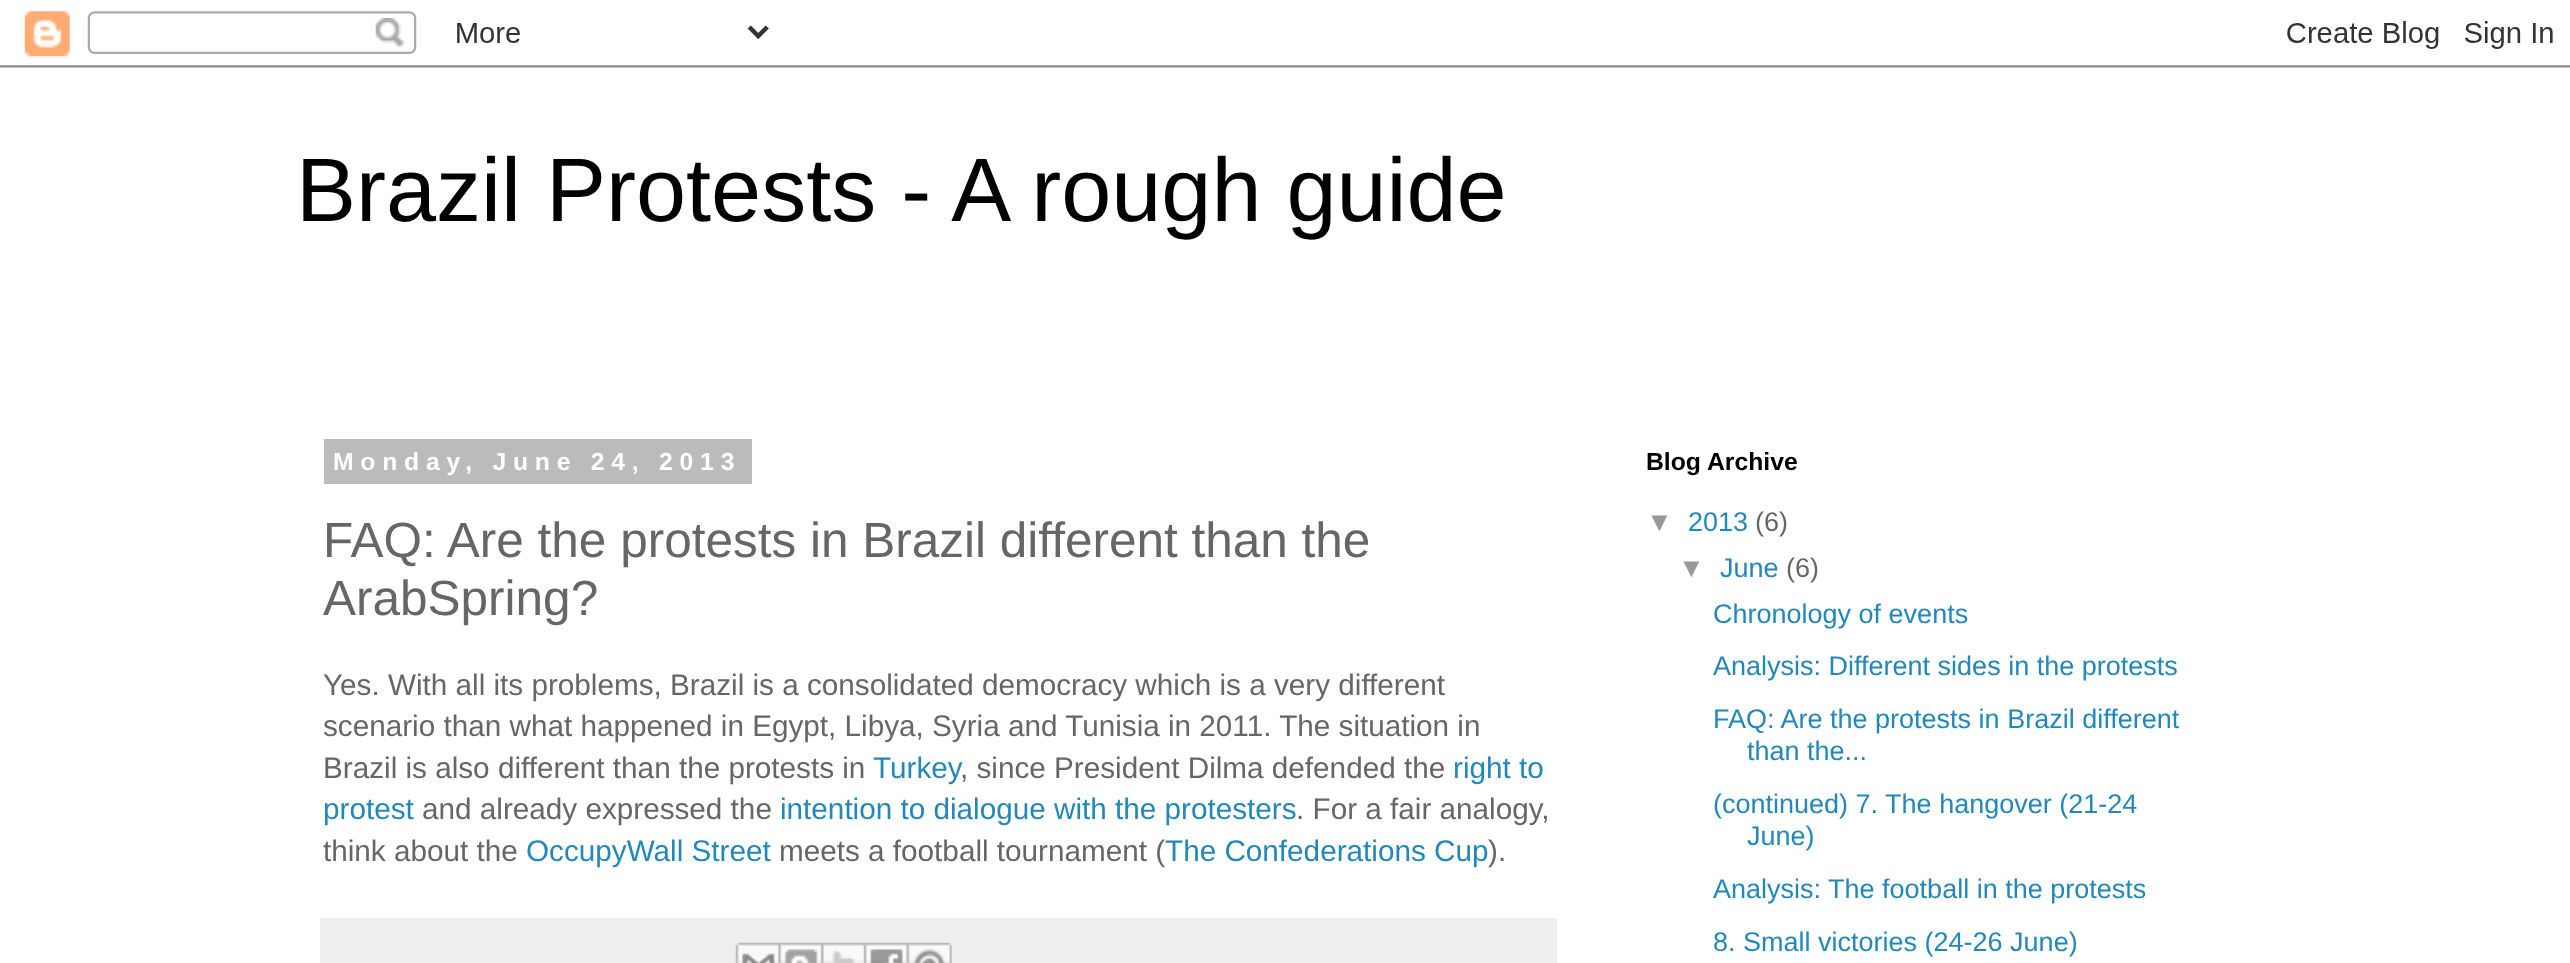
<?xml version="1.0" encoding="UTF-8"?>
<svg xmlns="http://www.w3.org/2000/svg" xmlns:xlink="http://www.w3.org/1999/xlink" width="2570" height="963">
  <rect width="100%" height="100%" fill="#ffffff" />
  <image x="0" y="11" width="2570" height="57" xlink:href="image1.png" />
  <rect x="324" y="439" width="428" height="45" fill="#bbbbbb" />
  <rect x="320" y="918" width="1237" height="45" fill="#eeeeee" />
  <image x="735" y="942" width="46" height="21" xlink:href="image2.png" />
  <image x="778" y="942" width="46" height="21" xlink:href="image3.png" />
  <image x="821" y="942" width="46" height="21" xlink:href="image4.png" />
  <image x="864" y="942" width="45" height="21" xlink:href="image5.png" />
  <image x="906" y="942" width="46" height="21" xlink:href="image6.png" />
  <text x="296" y="221" style="font-family: Liberation Sans; font-size: 90px; fill: #000000">Brazil Protests - A rough guide</text>
  <text x="333" y="470" style="font-family: Liberation Sans; font-size: 24.75px; font-weight: bold; letter-spacing: 6.75px; fill: #ffffff">Monday, June 24, 2013</text>
  <text x="323" y="557" style="font-family: Liberation Sans; font-size: 49.5px; fill: #666666">FAQ: Are the protests in Brazil different than the</text>
  <text x="323" y="615" style="font-family: Liberation Sans; font-size: 49.5px; fill: #666666">ArabSpring?</text>
  <text x="323" y="695" style="font-family: Liberation Sans; font-size: 29.7px; fill: #666666">Yes. With all its problems, Brazil is a consolidated democracy which is a very different</text>
  <text x="323" y="736" style="font-family: Liberation Sans; font-size: 29.7px; fill: #666666">scenario than what happened in Egypt, Libya, Syria and Tunisia in 2011. The situation in</text>
  <text x="323" y="778" style="font-family: Liberation Sans; font-size: 29.7px; fill: #666666">Brazil is also different than the protests in</text>
  <text x="873" y="778" style="font-family: Liberation Sans; font-size: 29.7px; fill: #2288bb">Turkey</text>
  <text x="960" y="778" style="font-family: Liberation Sans; font-size: 29.7px; fill: #666666">, since President Dilma defended the</text>
  <text x="1453" y="778" style="font-family: Liberation Sans; font-size: 29.7px; fill: #2288bb">right to</text>
  <text x="323" y="819" style="font-family: Liberation Sans; font-size: 29.7px; fill: #2288bb">protest</text>
  <text x="422" y="819" style="font-family: Liberation Sans; font-size: 29.7px; fill: #666666">and already expressed the</text>
  <text x="780" y="819" style="font-family: Liberation Sans; font-size: 29.7px; fill: #2288bb">intention to dialogue with the protesters</text>
  <text x="1296" y="819" style="font-family: Liberation Sans; font-size: 29.7px; fill: #666666">. For a fair analogy,</text>
  <text x="323" y="861" style="font-family: Liberation Sans; font-size: 29.7px; fill: #666666">think about the</text>
  <text x="526" y="861" style="font-family: Liberation Sans; font-size: 29.7px; fill: #2288bb">OccupyWall Street</text>
  <text x="779" y="861" style="font-family: Liberation Sans; font-size: 29.7px; fill: #666666">meets a football tournament (</text>
  <text x="1165" y="861" style="font-family: Liberation Sans; font-size: 29.7px; fill: #2288bb">The Confederations Cup</text>
  <text x="1488" y="861" style="font-family: Liberation Sans; font-size: 29.7px; fill: #666666">).</text>
  <text x="1646" y="470" style="font-family: Liberation Sans; font-size: 24.75px; font-weight: bold; fill: #000000">Blog Archive</text>
  <text x="1646" y="531" style="font-family: Liberation Sans; font-size: 27px; fill: #999999">▼</text>
  <text x="1688" y="531" style="font-family: Liberation Sans; font-size: 27px; fill: #2288bb">2013</text>
  <text x="1755" y="531" style="font-family: Liberation Sans; font-size: 27px; fill: #666666">(6)</text>
  <text x="1678" y="577" style="font-family: Liberation Sans; font-size: 27px; fill: #999999">▼</text>
  <text x="1720" y="577" style="font-family: Liberation Sans; font-size: 27px; fill: #2288bb">June</text>
  <text x="1786" y="577" style="font-family: Liberation Sans; font-size: 27px; fill: #666666">(6)</text>
  <text x="1713" y="623" style="font-family: Liberation Sans; font-size: 27px; fill: #2288bb">Chronology of events</text>
  <text x="1713" y="675" style="font-family: Liberation Sans; font-size: 27px; fill: #2288bb">Analysis: Different sides in the protests</text>
  <text x="1713" y="728" style="font-family: Liberation Sans; font-size: 27px; fill: #2288bb">FAQ: Are the protests in Brazil different</text>
  <text x="1747" y="760" style="font-family: Liberation Sans; font-size: 27px; fill: #2288bb">than the...</text>
  <text x="1713" y="813" style="font-family: Liberation Sans; font-size: 27px; fill: #2288bb">(continued) 7. The hangover (21-24</text>
  <text x="1747" y="845" style="font-family: Liberation Sans; font-size: 27px; fill: #2288bb">June)</text>
  <text x="1713" y="898" style="font-family: Liberation Sans; font-size: 27px; fill: #2288bb">Analysis: The football in the protests</text>
  <text x="1713" y="951" style="font-family: Liberation Sans; font-size: 27px; fill: #2288bb">8. Small victories (24-26 June)</text>
</svg>
